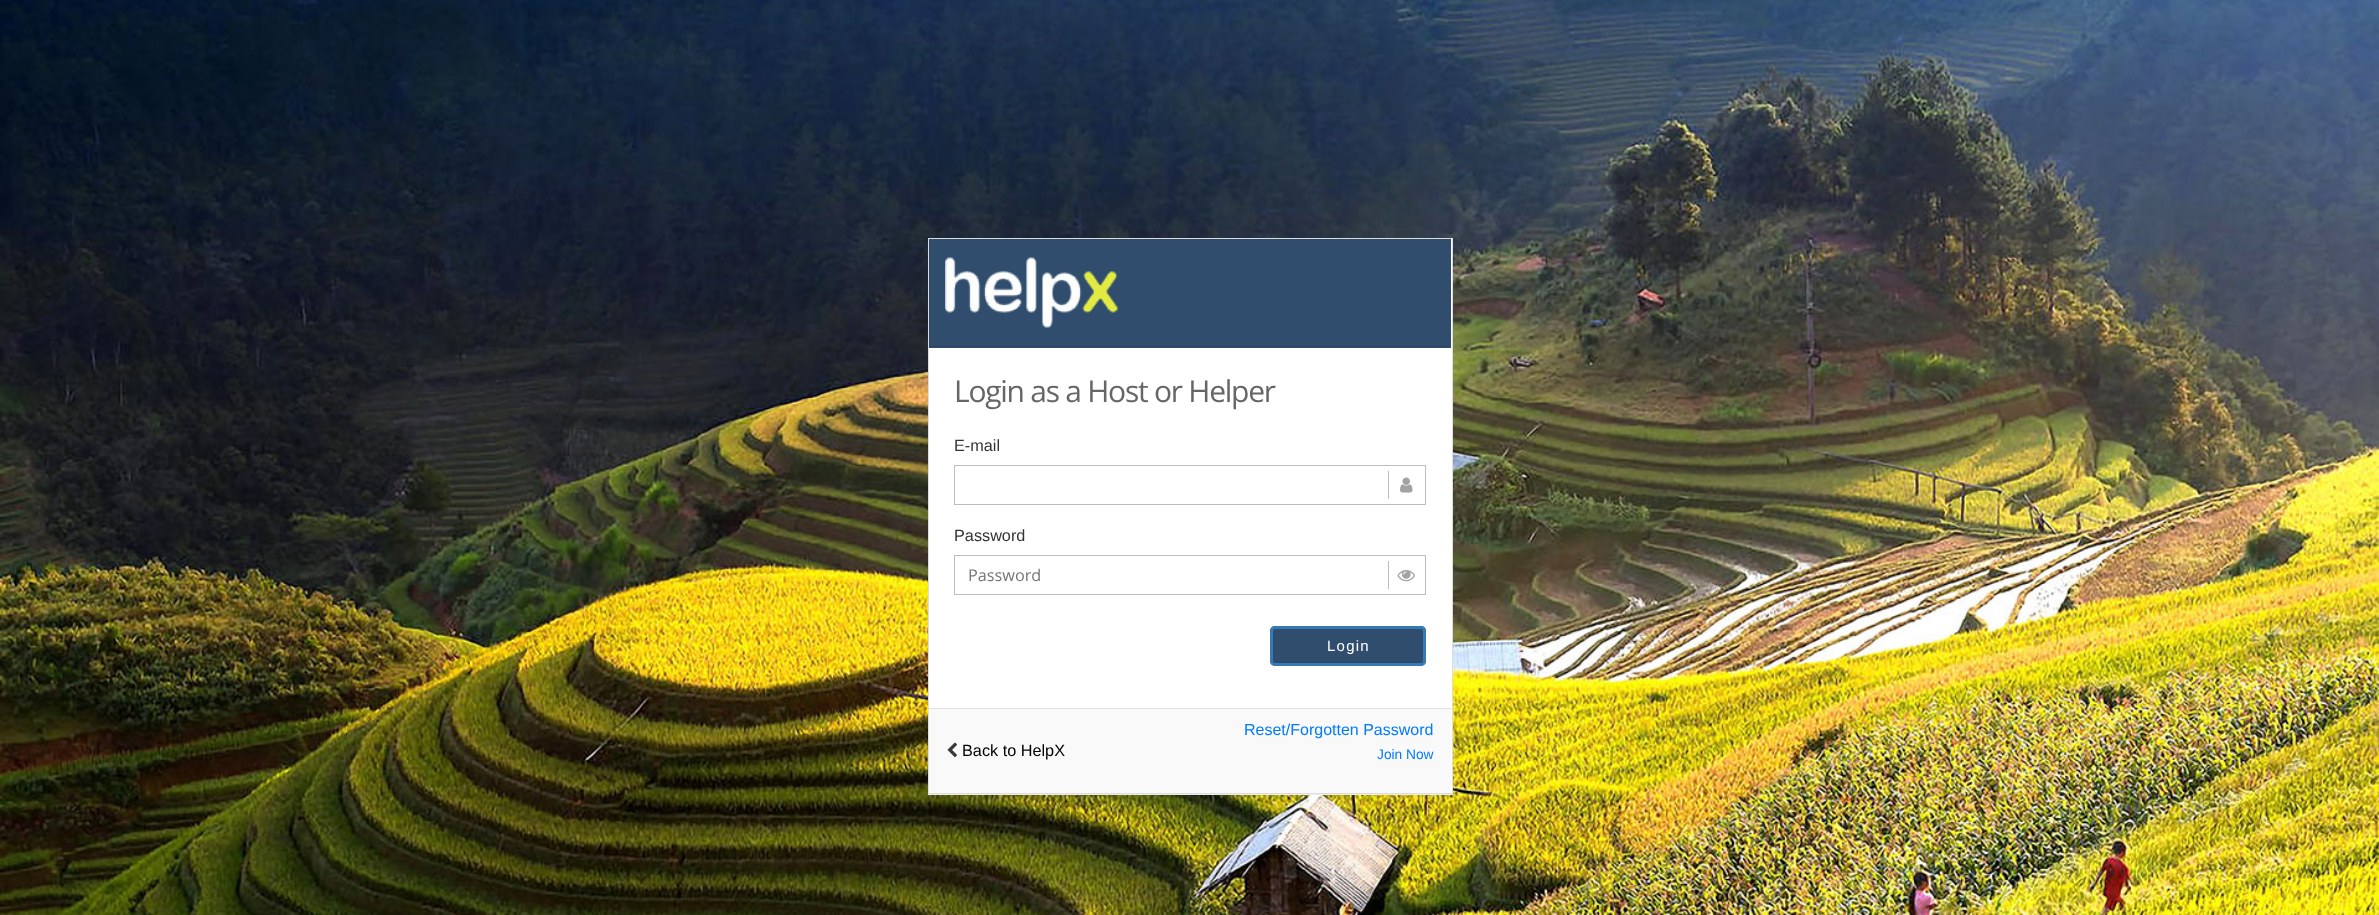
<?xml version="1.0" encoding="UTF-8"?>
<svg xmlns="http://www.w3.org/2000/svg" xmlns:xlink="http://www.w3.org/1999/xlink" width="2379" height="915">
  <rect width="100%" height="100%" fill="#ffffff" />
  <image x="0" y="0" width="2379" height="915" xlink:href="image1.png" />
  <rect x="928" y="239" width="525" height="556" fill="#ececec" filter="blur(0.5px)" />
  <rect x="928.5" y="238.5" width="524" height="555" fill="#ffffff" stroke="#dddddd" />
  <rect x="929" y="239" width="522" height="109" fill="#314d6d" />
  <rect x="929" y="346" width="522" height="1" fill="#2c4562" />
  <image x="945" y="257" width="173" height="71" xlink:href="image2.png" />
  <rect x="954.5" y="465.5" width="471" height="39" fill="none" stroke="#bdbdbd" />
  <rect x="1388" y="471" width="1" height="28" fill="#bdbdbd" />
  <image x="1400" y="477" width="13" height="16" xlink:href="image3.png" />
  <rect x="954.5" y="555.5" width="471" height="39" fill="none" stroke="#bdbdbd" />
  <rect x="1388" y="561" width="1" height="28" fill="#bdbdbd" />
  <image x="1397" y="570" width="18" height="12" xlink:href="image4.png" />
  <rect x="1270" y="626" width="156" height="40" rx="5" fill="#314d6d" />
  <path d="M 1273 660 v 2 c 0 1 1 2 3 2 h 146 c 1 0 2 -1 2 -2 v -3 c 0 1 -1 2 -3 2 h -146 z" fill="#2f4968" />
  <rect x="1271.5" y="627.5" width="153" height="37" rx="3.5" fill="none" stroke="#337ab7" stroke-width="3" />
  <rect x="929" y="709" width="522" height="84" fill="#f9f9f9" />
  <rect x="929" y="708" width="522" height="1" fill="#e0e0e0" />
  <image x="947" y="742" width="10" height="16" xlink:href="image5.png" />
  <text x="954" y="402" style="font-family: Open Sans; font-size: 30px; letter-spacing: -1.25px; fill: #666666">Login as a Host or Helper</text>
  <text x="954" y="451" style="font-family: Liberation Sans; font-size: 16.25px; fill: #333333">E-mail</text>
  <text x="954" y="541" style="font-family: Liberation Sans; font-size: 16.25px; fill: #333333">Password</text>
  <text x="968" y="581" style="font-family: Open Sans; font-size: 16.25px; fill: #757575">Password</text>
  <text x="1327" y="651" style="font-family: Liberation Sans; font-size: 15px; letter-spacing: 1.25px; fill: #ffffff">Login</text>
  <text x="962" y="756" style="font-family: Liberation Sans; font-size: 16.25px; fill: #000000">Back to HelpX</text>
  <text x="1244" y="735" style="font-family: Liberation Sans; font-size: 16px; fill: #007bff">Reset/Forgotten Password</text>
  <text x="1377" y="759" style="font-family: Liberation Sans; font-size: 13.75px; fill: #007bff">Join Now</text>
</svg>
